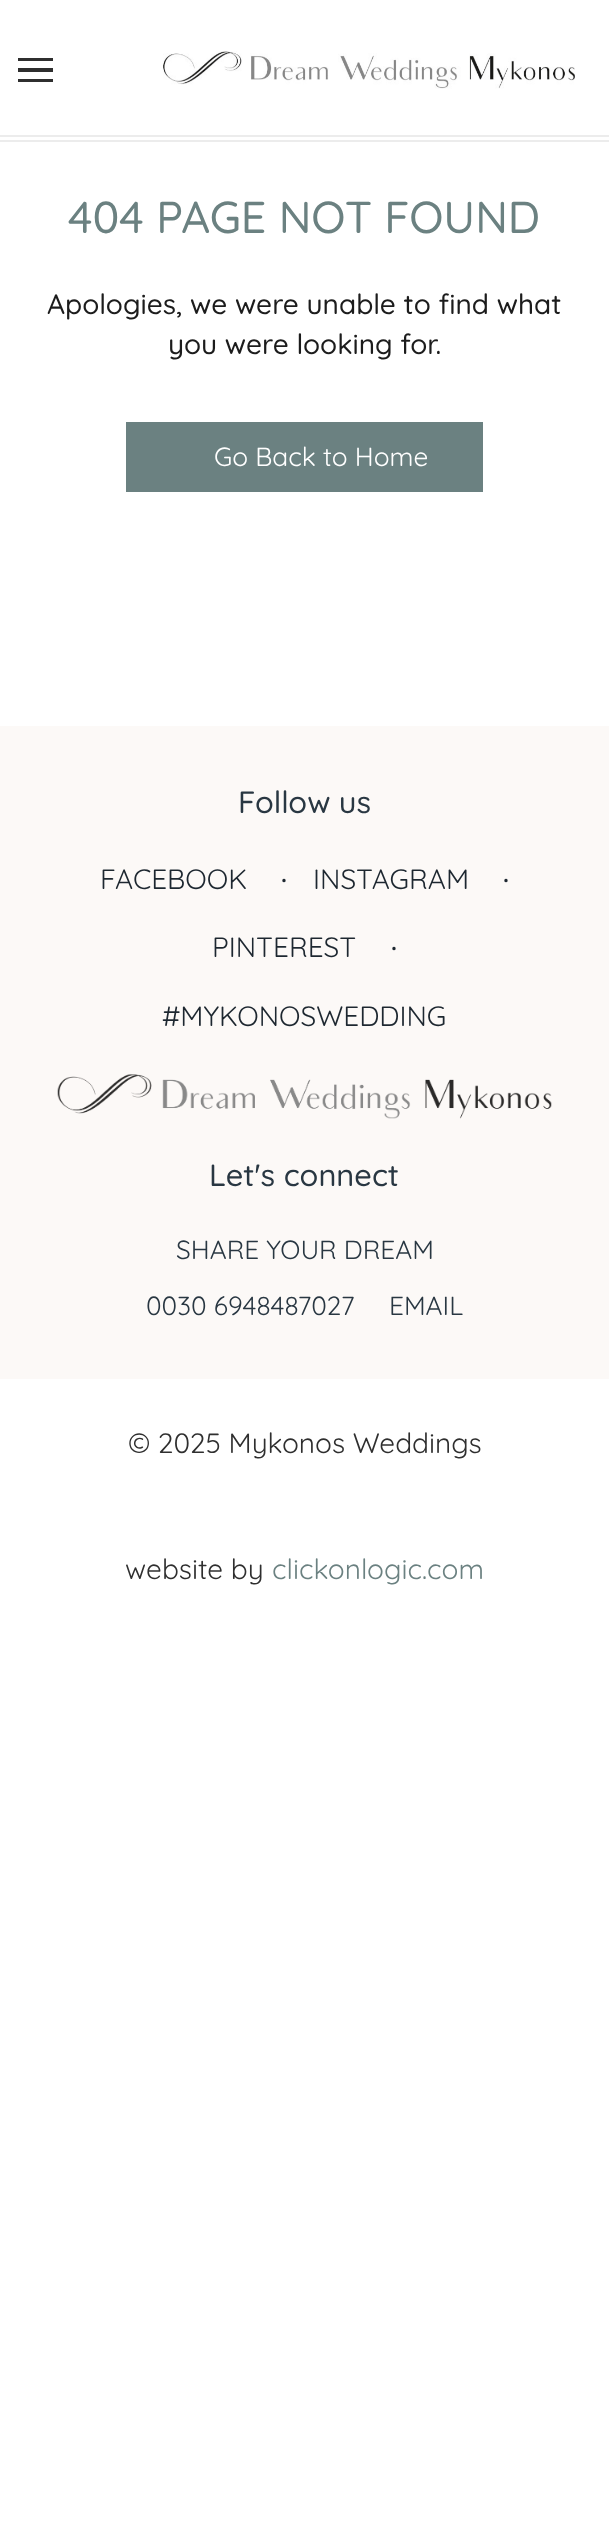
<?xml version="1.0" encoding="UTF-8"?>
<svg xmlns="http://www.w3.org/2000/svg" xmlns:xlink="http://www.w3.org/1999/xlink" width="609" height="2538">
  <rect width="100%" height="100%" fill="#ffffff" />
  <rect y="140" width="609" height="2" fill="#ececec" />
  <rect x="18" y="58" width="35" height="3" fill="#2f2f2f" />
  <rect x="18" y="68" width="35" height="4" fill="#2f2f2f" />
  <rect x="18" y="79" width="35" height="3" fill="#2f2f2f" />
  <image x="163" y="51" width="412" height="38" xlink:href="image1.png" />
  <rect y="135" width="609" height="2" fill="#ececec" />
  <rect x="126" y="422" width="357" height="70" fill="#6b8181" />
  <rect y="726" width="609" height="653" fill="#fcf9f7" />
  <image x="57" y="1074" width="495" height="45" xlink:href="image2.png" />
  <text x="68" y="233" style="font-family: Quicksand; font-size: 44.75px; font-weight: 500; fill: #6b8181">404 PAGE NOT FOUND</text>
  <text x="47" y="314" style="font-family: Quicksand; font-size: 28px; font-weight: 500; fill: #1c1c1c">Apologies, we were unable to find what</text>
  <text x="168" y="354" style="font-family: Quicksand; font-size: 28px; font-weight: 500; fill: #1c1c1c">you were looking for.</text>
  <text x="214" y="466" style="font-family: Quicksand; font-size: 26.25px; fill: #ffffff">Go Back to Home</text>
  <text x="238" y="813" style="font-family: Quicksand; font-size: 30.75px; font-weight: 500; fill: #293742">Follow us</text>
  <text x="100" y="889" style="font-family: Quicksand; font-size: 28px; fill: #1d2730">FACEBOOK</text>
  <text x="281" y="889" style="font-family: Quicksand; font-size: 28px; font-weight: 600; fill: #1d2730">·</text>
  <text x="313" y="889" style="font-family: Quicksand; font-size: 28px; fill: #1d2730">INSTAGRAM</text>
  <text x="503" y="889" style="font-family: Quicksand; font-size: 28px; font-weight: 600; fill: #1d2730">·</text>
  <text x="212" y="957" style="font-family: Quicksand; font-size: 28px; fill: #1d2730">PINTEREST</text>
  <text x="391" y="957" style="font-family: Quicksand; font-size: 28px; font-weight: 600; fill: #1d2730">·</text>
  <text x="162" y="1026" style="font-family: Quicksand; font-size: 28px; fill: #1d2730">#MYKONOSWEDDING</text>
  <text x="209" y="1186" style="font-family: Quicksand; font-size: 30.75px; font-weight: 500; fill: #293742">Let's connect</text>
  <text x="176" y="1259" style="font-family: Quicksand; font-size: 26.25px; fill: #293742">SHARE YOUR DREAM</text>
  <text x="146" y="1315" style="font-family: Quicksand; font-size: 26.25px; fill: #293742">0030 6948487027</text>
  <text x="389" y="1315" style="font-family: Quicksand; font-size: 26.25px; fill: #293742">EMAIL</text>
  <text x="128" y="1453" style="font-family: Quicksand; font-size: 28px; fill: #2f2f2f">© 2025 Mykonos Weddings</text>
  <text x="125" y="1579" style="font-family: Quicksand; font-size: 28px; fill: #2f2f2f">website by</text>
  <text x="272" y="1579" style="font-family: Quicksand; font-size: 28px; fill: #6b8181">clickonlogic.com</text>
</svg>
